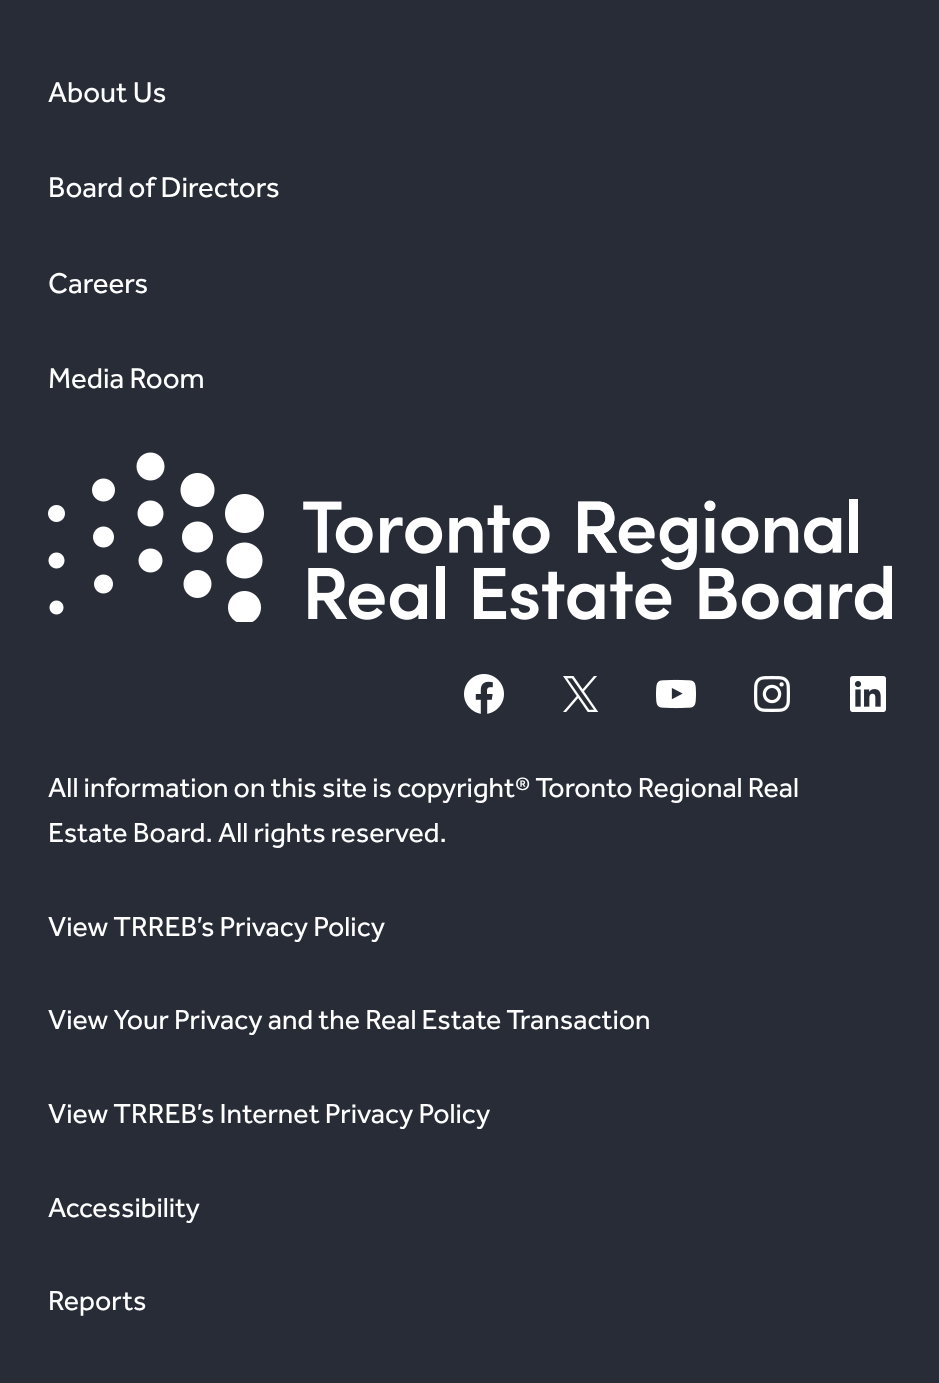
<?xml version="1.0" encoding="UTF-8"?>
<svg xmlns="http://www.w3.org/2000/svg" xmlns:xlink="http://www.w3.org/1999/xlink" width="939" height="1383">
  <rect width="100%" height="100%" fill="#272c37" />
  <image x="48" y="452" width="844" height="170" xlink:href="image1.png" />
  <image x="464" y="674" width="40" height="40" xlink:href="image2.png" />
  <image x="563" y="676" width="36" height="36" xlink:href="image3.png" />
  <image x="656" y="679" width="40" height="30" xlink:href="image4.png" />
  <image x="754" y="676" width="36" height="36" xlink:href="image5.png" />
  <image x="850" y="676" width="36" height="36" xlink:href="image6.png" />
  <text x="48" y="102" style="font-family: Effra; font-size: 29.5px; fill: #ffffff">About Us</text>
  <text x="48" y="197" style="font-family: Effra; font-size: 29.5px; fill: #ffffff">Board of Directors</text>
  <text x="48" y="293" style="font-family: Effra; font-size: 29.5px; fill: #ffffff">Careers</text>
  <text x="48" y="388" style="font-family: Effra; font-size: 29.5px; fill: #ffffff">Media Room</text>
  <text x="48" y="797" style="font-family: Effra; font-size: 28.5px; fill: #ffffff">All information on this site is copyright® Toronto Regional Real</text>
  <text x="48" y="842" style="font-family: Effra; font-size: 28.5px; fill: #ffffff">Estate Board. All rights reserved.</text>
  <text x="48" y="936" style="font-family: Effra; font-size: 28.5px; fill: #ffffff">View TRREB’s Privacy Policy</text>
  <text x="48" y="1029" style="font-family: Effra; font-size: 28.5px; fill: #ffffff">View Your Privacy and the Real Estate Transaction</text>
  <text x="48" y="1123" style="font-family: Effra; font-size: 28.5px; fill: #ffffff">View TRREB’s Internet Privacy Policy</text>
  <text x="48" y="1217" style="font-family: Effra; font-size: 28.5px; fill: #ffffff">Accessibility</text>
  <text x="48" y="1310" style="font-family: Effra; font-size: 28.5px; fill: #ffffff">Reports</text>
</svg>
